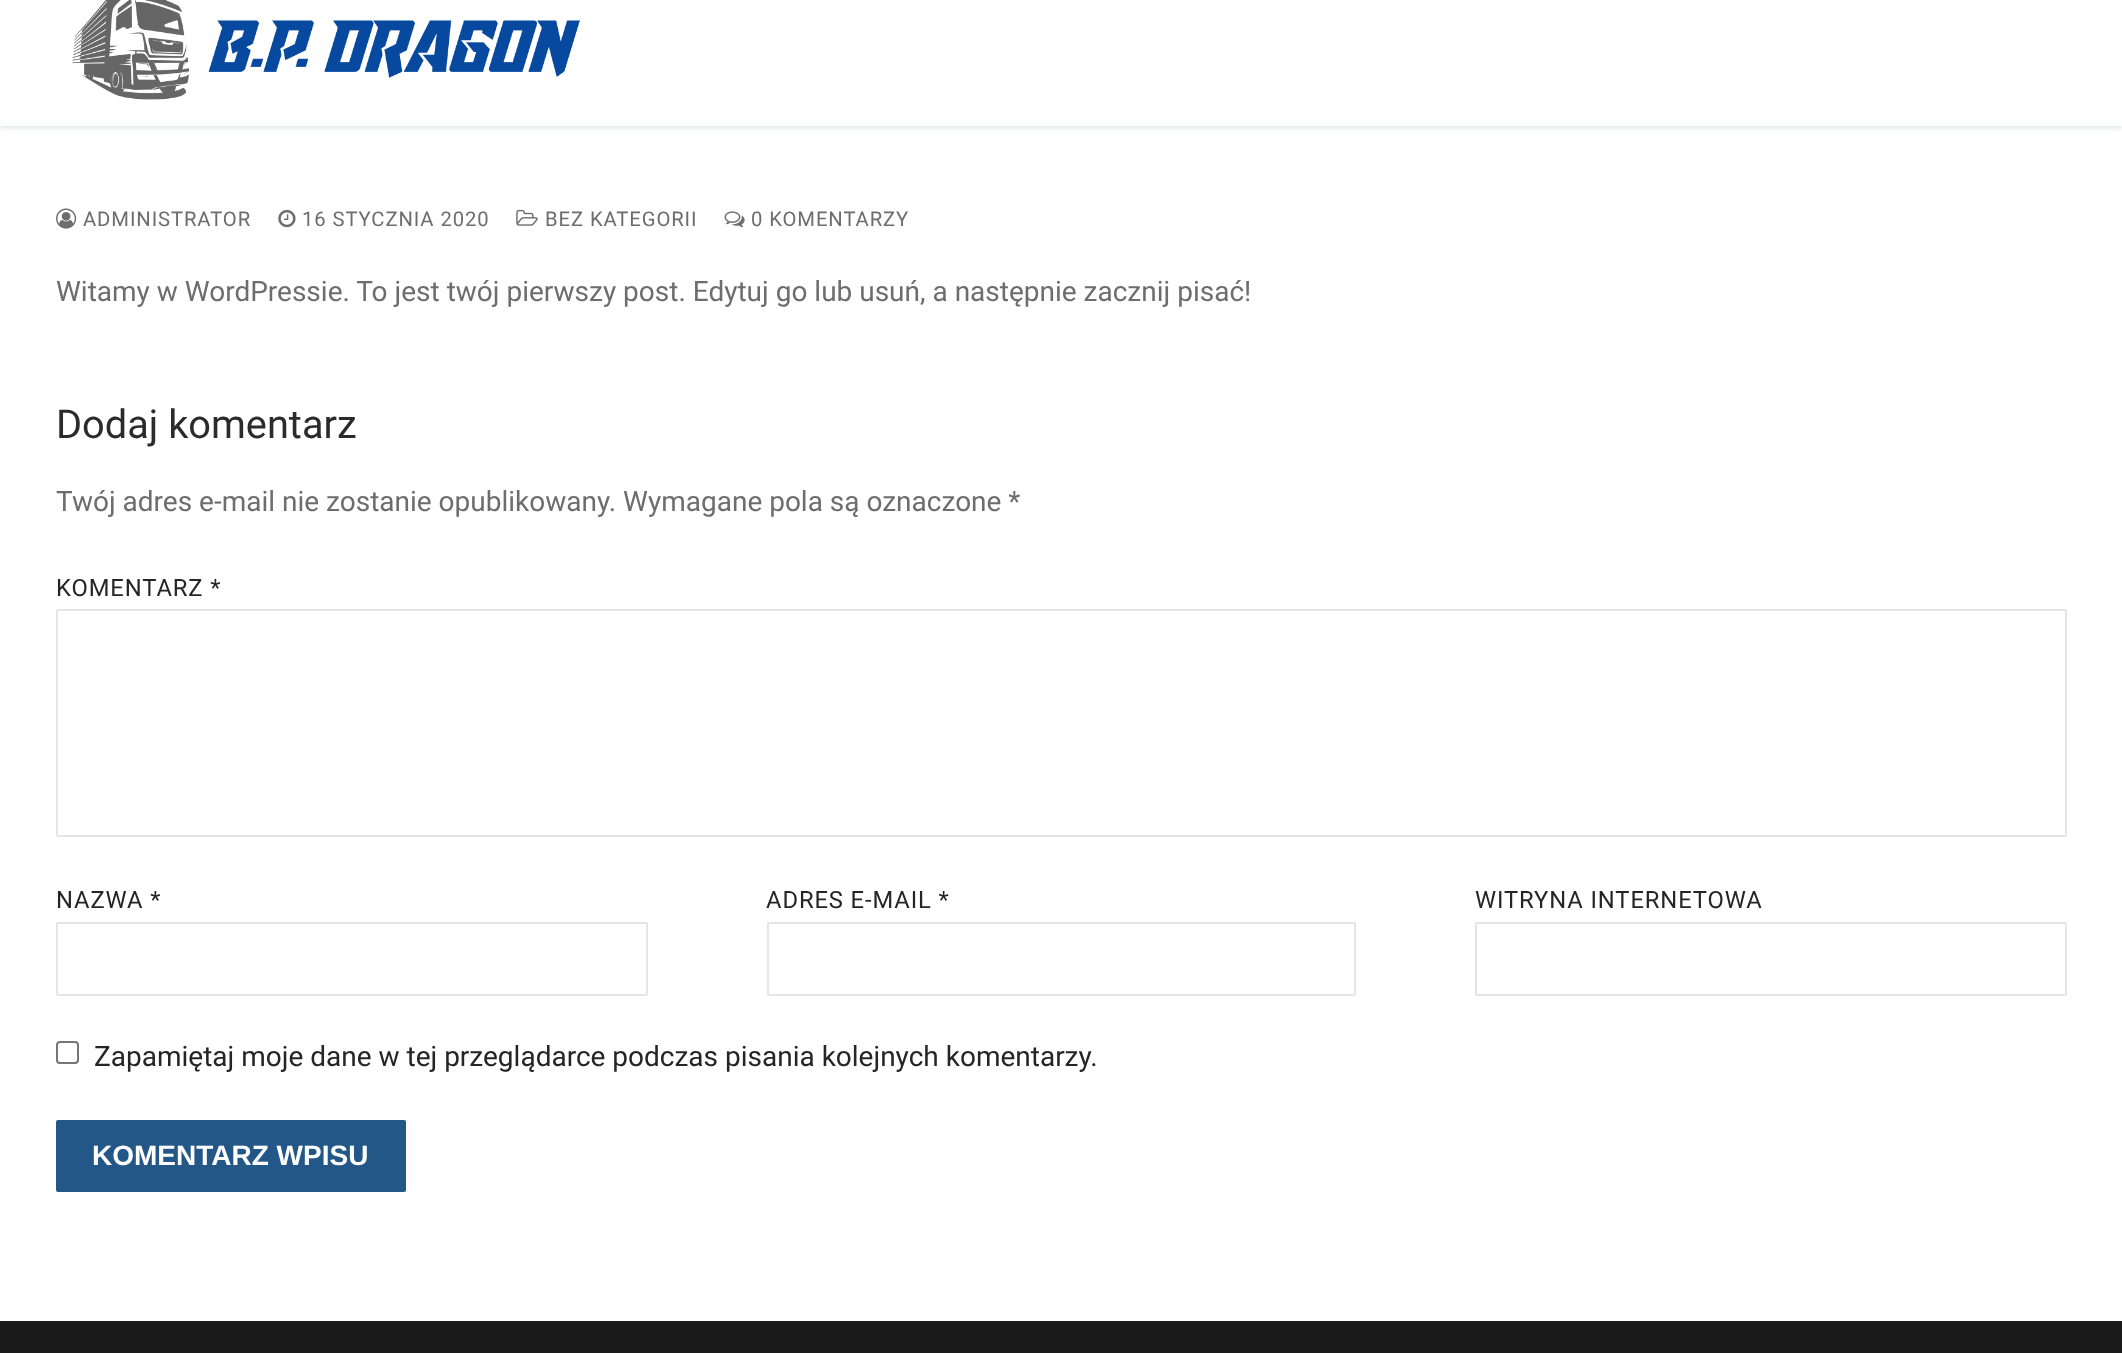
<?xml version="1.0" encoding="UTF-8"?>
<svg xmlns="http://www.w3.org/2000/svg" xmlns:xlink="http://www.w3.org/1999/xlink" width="2122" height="1353">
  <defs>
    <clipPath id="clip1"><rect x="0" y="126" width="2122" height="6" /></clipPath>
  </defs>
  <rect width="100%" height="100%" fill="#ffffff" />
  <g clip-path="url(#clip1)">
    <rect y="-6" width="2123" height="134" fill="#e1e5ea" filter="blur(2px)" />
  </g>
  <image x="72" y="0" width="508" height="100" xlink:href="image1.png" />
  <image x="56" y="208" width="21" height="21" xlink:href="image2.png" />
  <image x="278" y="209" width="18" height="19" xlink:href="image3.png" />
  <image x="516" y="209" width="22" height="17" xlink:href="image4.png" />
  <image x="724" y="211" width="21" height="17" xlink:href="image5.png" />
  <rect x="57" y="610" width="2009" height="226" rx="1" fill="none" stroke="#e5e5e5" stroke-width="2" />
  <rect x="57" y="923" width="590" height="72" rx="1" fill="none" stroke="#e5e5e5" stroke-width="2" />
  <rect x="768" y="923" width="587" height="72" rx="1" fill="none" stroke="#e5e5e5" stroke-width="2" />
  <rect x="1476" y="923" width="590" height="72" rx="1" fill="none" stroke="#e5e5e5" stroke-width="2" />
  <rect x="57" y="1042" width="21" height="21" rx="3" fill="none" stroke="#767676" stroke-width="2" />
  <rect x="56" y="1120" width="350" height="72" rx="2" fill="#235787" />
  <rect y="1321" width="2122" height="32" fill="#1a1a1a" />
  <text x="83" y="226" style="font-family: Roboto; font-size: 20.25px; letter-spacing: 0.9px; fill: #6d6d6d">ADMINISTRATOR</text>
  <text x="302" y="226" style="font-family: Roboto; font-size: 20.25px; letter-spacing: 0.9px; fill: #6d6d6d">16 STYCZNIA 2020</text>
  <text x="545" y="226" style="font-family: Roboto; font-size: 20.25px; letter-spacing: 0.9px; fill: #6d6d6d">BEZ KATEGORII</text>
  <text x="751" y="226" style="font-family: Roboto; font-size: 20.25px; letter-spacing: 0.9px; fill: #6d6d6d">0 KOMENTARZY</text>
  <text x="56" y="301" style="font-family: Roboto; font-size: 28px; fill: #6d6d6d">Witamy w WordPressie. To jest twój pierwszy post. Edytuj go lub usuń, a następnie zacznij pisać!</text>
  <text x="56" y="438" style="font-family: Roboto; font-size: 39.75px; fill: #2b2b2b">Dodaj komentarz</text>
  <text x="56" y="511" style="font-family: Roboto; font-size: 28px; fill: #6d6d6d">Twój adres e-mail nie zostanie opublikowany. Wymagane pola są oznaczone *</text>
  <text x="56" y="596" style="font-family: Roboto; font-size: 23.75px; letter-spacing: 0.9px; fill: #252525">KOMENTARZ *</text>
  <text x="56" y="908" style="font-family: Roboto; font-size: 23.75px; letter-spacing: 0.9px; fill: #252525">NAZWA *</text>
  <text x="766" y="908" style="font-family: Roboto; font-size: 23.75px; letter-spacing: 0.9px; fill: #252525">ADRES E-MAIL *</text>
  <text x="1475" y="908" style="font-family: Roboto; font-size: 23.75px; letter-spacing: 0.9px; fill: #252525">WITRYNA INTERNETOWA</text>
  <text x="94" y="1066" style="font-family: Roboto; font-size: 28px; fill: #252525">Zapamiętaj moje dane w tej przeglądarce podczas pisania kolejnych komentarzy.</text>
  <text x="92" y="1165" style="font-family: Liberation Sans; font-size: 28px; font-weight: bold; fill: #ffffff">KOMENTARZ WPISU</text>
</svg>
